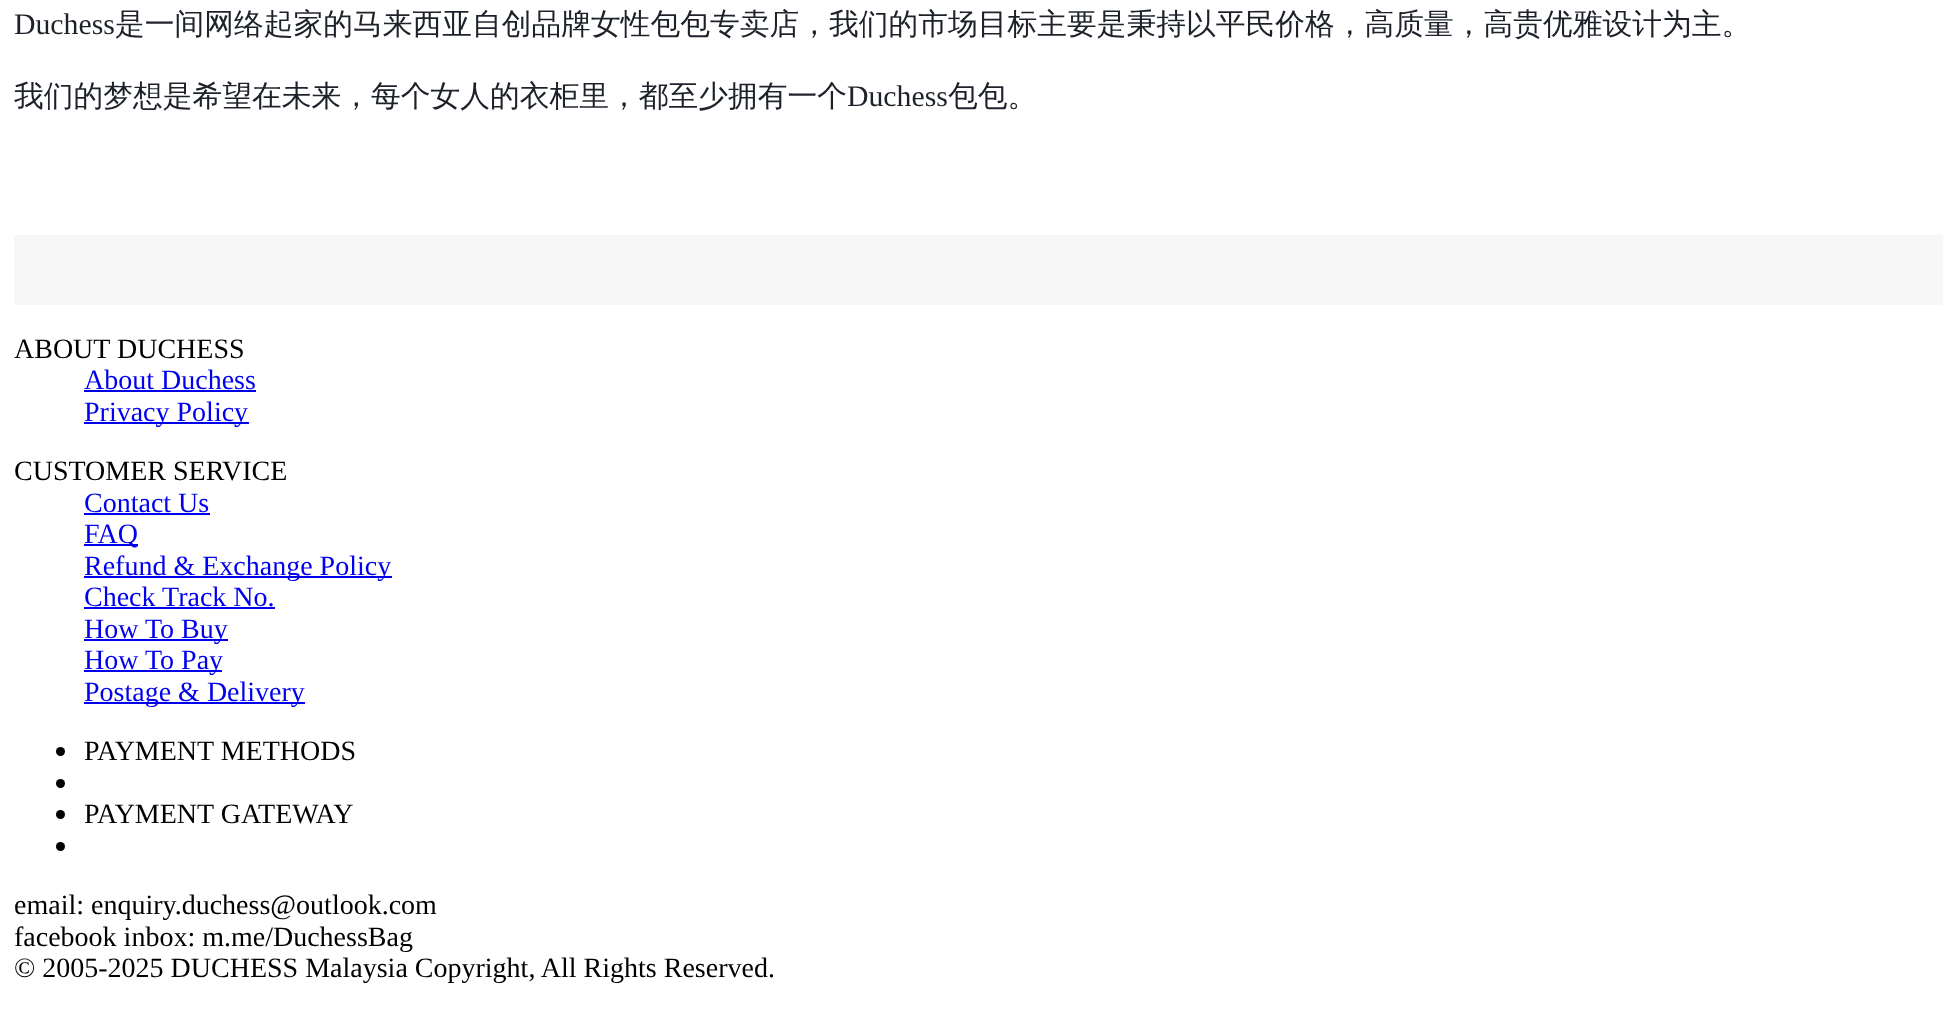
<?xml version="1.0" encoding="UTF-8"?>
<svg xmlns="http://www.w3.org/2000/svg" xmlns:xlink="http://www.w3.org/1999/xlink" width="1956" height="1030">
  <rect width="100%" height="100%" fill="#ffffff" />
  <rect x="14" y="235" width="1929" height="70" fill="#f7f7f7" />
  <rect x="84" y="390" width="172" height="2" fill="#0000ee" />
  <rect x="84" y="422" width="165" height="2" fill="#0000ee" />
  <rect x="84" y="513" width="126" height="2" fill="#0000ee" />
  <rect x="84" y="544" width="54" height="2" fill="#0000ee" />
  <rect x="84" y="576" width="308" height="2" fill="#0000ee" />
  <rect x="84" y="607" width="191" height="2" fill="#0000ee" />
  <rect x="84" y="639" width="144" height="2" fill="#0000ee" />
  <rect x="84" y="670" width="138" height="2" fill="#0000ee" />
  <rect x="84" y="702" width="221" height="2" fill="#0000ee" />
  <circle cx="60.5" cy="751.5" r="4.5" fill="#000000" />
  <circle cx="60.5" cy="783.5" r="4.5" fill="#000000" />
  <circle cx="60.5" cy="814.5" r="4.5" fill="#000000" />
  <circle cx="60.5" cy="846.5" r="4.5" fill="#000000" />
  <text x="14" y="34" style="font-family: Liberation Serif; font-size: 29.75px; fill: #1d2129">Duchess</text>
  <text x="115" y="34" style="font-family: WenQuanYi Zen Hei; font-size: 29.75px; font-weight: 500; fill: #1d2129">是一间网络起家的马来西亚自创品牌女性包包专卖店，我们的市场目标主要是秉持以平民价格，高质量，高贵优雅设计为主。</text>
  <text x="14" y="106" style="font-family: WenQuanYi Zen Hei; font-size: 29.75px; font-weight: 500; fill: #1d2129">我们的梦想是希望在未来，每个女人的衣柜里，都至少拥有一个</text>
  <text x="847" y="106" style="font-family: Liberation Serif; font-size: 29.75px; fill: #1d2129">Duchess</text>
  <text x="948" y="106" style="font-family: WenQuanYi Zen Hei; font-size: 29.75px; font-weight: 500; fill: #1d2129">包包。</text>
  <text x="14" y="358" style="font-family: Liberation Serif; font-size: 28px; fill: #000000">ABOUT DUCHESS</text>
  <text x="84" y="389" style="font-family: Liberation Serif; font-size: 28px; fill: #0000ee">About Duchess</text>
  <text x="84" y="421" style="font-family: Liberation Serif; font-size: 28px; fill: #0000ee">Privacy Policy</text>
  <text x="14" y="480" style="font-family: Liberation Serif; font-size: 28px; fill: #000000">CUSTOMER SERVICE</text>
  <text x="84" y="512" style="font-family: Liberation Serif; font-size: 28px; fill: #0000ee">Contact Us</text>
  <text x="84" y="543" style="font-family: Liberation Serif; font-size: 28px; fill: #0000ee">FAQ</text>
  <text x="84" y="575" style="font-family: Liberation Serif; font-size: 28px; fill: #0000ee">Refund &amp; Exchange Policy</text>
  <text x="84" y="606" style="font-family: Liberation Serif; font-size: 28px; fill: #0000ee">Check Track No.</text>
  <text x="84" y="638" style="font-family: Liberation Serif; font-size: 28px; fill: #0000ee">How To Buy</text>
  <text x="84" y="669" style="font-family: Liberation Serif; font-size: 28px; fill: #0000ee">How To Pay</text>
  <text x="84" y="701" style="font-family: Liberation Serif; font-size: 28px; fill: #0000ee">Postage &amp; Delivery</text>
  <text x="84" y="760" style="font-family: Liberation Serif; font-size: 28px; fill: #000000">PAYMENT METHODS</text>
  <text x="84" y="823" style="font-family: Liberation Serif; font-size: 28px; fill: #000000">PAYMENT GATEWAY</text>
  <text x="14" y="914" style="font-family: Liberation Serif; font-size: 28px; fill: #000000">email: enquiry.duchess@outlook.com</text>
  <text x="14" y="946" style="font-family: Liberation Serif; font-size: 28px; fill: #000000">facebook inbox: m.me/DuchessBag</text>
  <text x="14" y="977" style="font-family: Liberation Serif; font-size: 28px; fill: #000000">© 2005-2025 DUCHESS Malaysia Copyright, All Rights Reserved.</text>
</svg>
